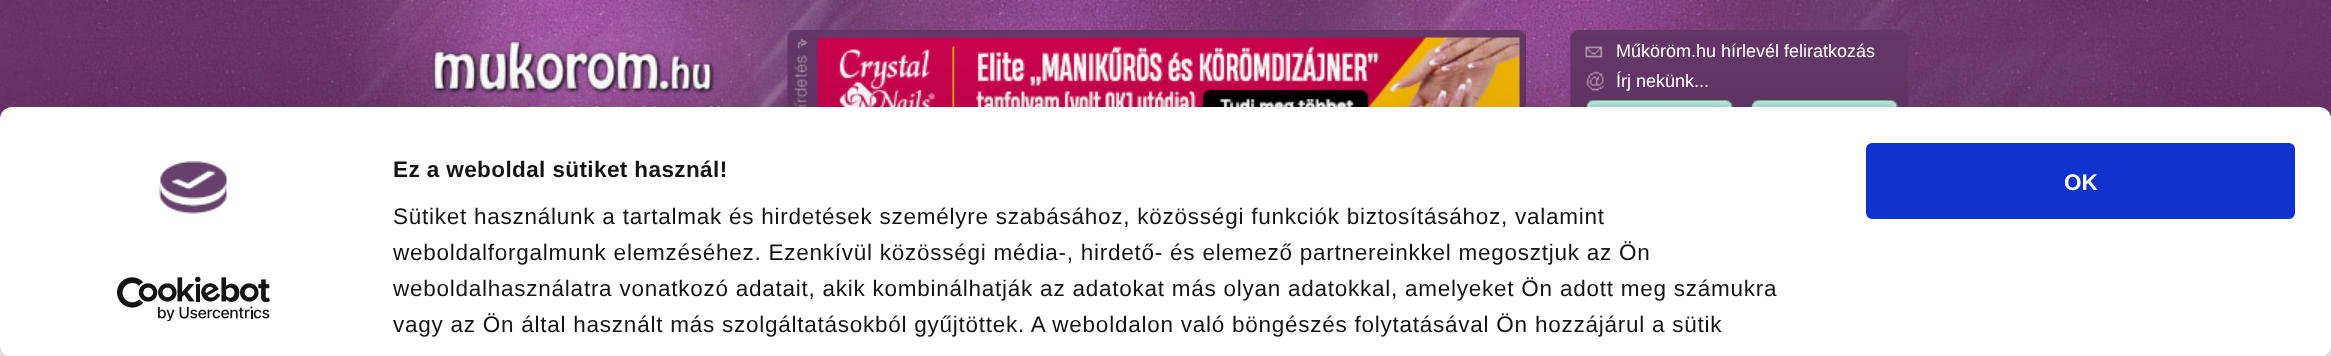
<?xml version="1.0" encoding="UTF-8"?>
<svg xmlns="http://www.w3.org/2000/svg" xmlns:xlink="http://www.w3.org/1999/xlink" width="2331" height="356">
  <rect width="100%" height="100%" fill="#ffffff" />
  <image x="0" y="0" width="2331" height="119" xlink:href="image1.png" />
  <image x="85" y="0" width="2161" height="107" xlink:href="image2.png" />
  <image x="427" y="37" width="301" height="70" xlink:href="image3.png" />
  <rect x="811" y="30" width="715" height="77" fill="#653767" />
  <image x="787" y="30" width="24" height="77" xlink:href="image4.png" />
  <image x="1519" y="30" width="7" height="77" xlink:href="image5.png" />
  <image x="817" y="37" width="703" height="70" xlink:href="image6.png" />
  <rect x="1577" y="30" width="325" height="77" fill="#653767" />
  <image x="1570" y="30" width="7" height="77" xlink:href="image7.png" />
  <image x="1902" y="30" width="6" height="77" xlink:href="image8.png" />
  <image x="1585" y="46" width="18" height="12" xlink:href="image9.png" />
  <image x="1586" y="71" width="19" height="20" xlink:href="image10.png" />
  <image x="1585" y="99" width="149" height="8" xlink:href="image11.png" />
  <image x="1750" y="99" width="149" height="8" xlink:href="image11.png" />
  <rect y="152" width="2331" height="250" rx="12" fill="#000000" fill-opacity="0.3" filter="blur(52.5px)" />
  <rect y="107" width="2331" height="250" rx="12" fill="#ffffff" />
  <image x="159" y="160" width="69" height="54" xlink:href="image12.png" />
  <image x="117" y="276" width="153" height="45" xlink:href="image13.png" />
  <rect x="1867.5" y="144.5" width="426" height="73" rx="4.5" fill="#1032cf" stroke="#1032cf" stroke-width="3" />
  <text x="1616" y="57" style="font-family: Liberation Sans; font-size: 18px; fill: #ffffff">Műköröm.hu hírlevél feliratkozás</text>
  <text x="1616" y="87" style="font-family: Liberation Sans; font-size: 18px; fill: #ffffff">Írj nekünk...</text>
  <text x="393" y="177" style="font-family: Liberation Sans; font-size: 22.5px; font-weight: bold; letter-spacing: 0.4px; fill: #141414">Ez a weboldal sütiket használ!</text>
  <text x="393" y="224" style="font-family: Liberation Sans; font-size: 22.5px; letter-spacing: 0.75px; fill: #141414">Sütiket használunk a tartalmak és hirdetések személyre szabásához, közösségi funkciók biztosításához, valamint</text>
  <text x="393" y="260" style="font-family: Liberation Sans; font-size: 22.5px; letter-spacing: 0.75px; fill: #141414">weboldalforgalmunk elemzéséhez. Ezenkívül közösségi média-, hirdető- és elemező partnereinkkel megosztjuk az Ön</text>
  <text x="393" y="296" style="font-family: Liberation Sans; font-size: 22.5px; letter-spacing: 0.75px; fill: #141414">weboldalhasználatra vonatkozó adatait, akik kombinálhatják az adatokat más olyan adatokkal, amelyeket Ön adott meg számukra</text>
  <text x="393" y="332" style="font-family: Liberation Sans; font-size: 22.5px; letter-spacing: 0.75px; fill: #141414">vagy az Ön által használt más szolgáltatásokból gyűjtöttek. A weboldalon való böngészés folytatásával Ön hozzájárul a sütik</text>
  <text x="2064" y="190" style="font-family: Liberation Sans; font-size: 22.5px; font-weight: bold; fill: #ffffff">OK</text>
</svg>
